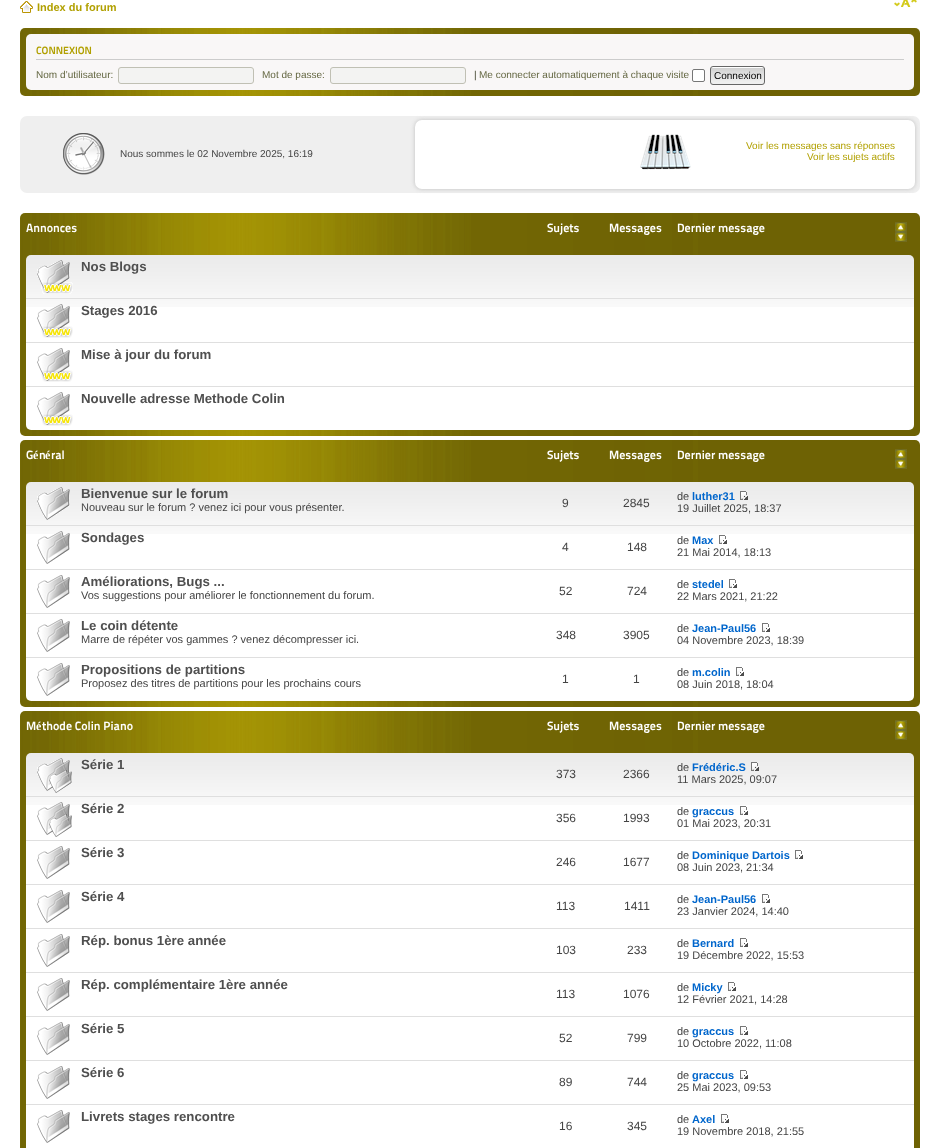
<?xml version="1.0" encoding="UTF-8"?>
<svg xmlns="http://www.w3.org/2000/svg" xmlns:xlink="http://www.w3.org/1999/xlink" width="927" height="1148">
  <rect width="100%" height="100%" fill="#ffffff" />
  <image x="20" y="1" width="13" height="12" xlink:href="image1.png" />
  <image x="894" y="0" width="23" height="7" xlink:href="image2.png" />
  <image x="20" y="28" width="900" height="68" xlink:href="image3.png" />
  <rect x="26" y="34" width="888" height="56" rx="5" fill="#f9f7f7" />
  <rect x="36" y="59" width="868" height="1" fill="#cccccc" />
  <rect x="118.5" y="67.5" width="135" height="16" rx="2.5" fill="#f3f3f2" stroke="#c0c0b4" />
  <rect x="330.5" y="67.5" width="135" height="16" rx="2.5" fill="#f3f3f2" stroke="#c0c0b4" />
  <rect x="692.5" y="69.5" width="12" height="12" rx="1.5" fill="#ffffff" stroke="#767676" />
  <image x="710" y="67" width="55" height="18" xlink:href="image4.png" />
  <rect x="710.5" y="66.5" width="54" height="18" rx="2.5" fill="none" stroke="#666666" />
  <rect x="20" y="116" width="900" height="77" rx="7" fill="#efefef" />
  <image x="63" y="133" width="42" height="42" xlink:href="image5.png" />
  <rect x="415" y="120" width="500" height="69" rx="7" fill="#bfbfbf" filter="blur(2px)" />
  <rect x="415" y="120" width="500" height="69" rx="7" fill="#ffffff" />
  <image x="640" y="134" width="51" height="36" xlink:href="image6.png" />
  <image x="20" y="213" width="900" height="223" xlink:href="image7.png" />
  <image x="895" y="222" width="12" height="20" xlink:href="image8.png" />
  <rect x="26" y="255" width="888" height="175" rx="5" fill="#ffffff" />
  <image x="26" y="255" width="888" height="52" xlink:href="image9.png" />
  <rect x="26" y="298" width="888" height="1" fill="#dfdfdf" />
  <image x="37" y="260" width="36" height="34" xlink:href="image10.png" />
  <rect x="26" y="342" width="888" height="1" fill="#dfdfdf" />
  <image x="37" y="304" width="36" height="34" xlink:href="image11.png" />
  <rect x="26" y="386" width="888" height="1" fill="#dfdfdf" />
  <image x="37" y="348" width="36" height="34" xlink:href="image12.png" />
  <image x="37" y="392" width="36" height="34" xlink:href="image12.png" />
  <image x="20" y="440" width="900" height="267" xlink:href="image13.png" />
  <image x="895" y="449" width="12" height="20" xlink:href="image8.png" />
  <rect x="26" y="482" width="888" height="219" rx="5" fill="#ffffff" />
  <image x="26" y="482" width="888" height="52" xlink:href="image9.png" />
  <rect x="26" y="525" width="888" height="1" fill="#dfdfdf" />
  <image x="37" y="487" width="33" height="33" xlink:href="image14.png" />
  <image x="740" y="491" width="8" height="9" xlink:href="image15.png" />
  <rect x="26" y="569" width="888" height="1" fill="#dfdfdf" />
  <image x="37" y="531" width="33" height="33" xlink:href="image16.png" />
  <image x="719" y="535" width="8" height="9" xlink:href="image17.png" />
  <rect x="26" y="613" width="888" height="1" fill="#dfdfdf" />
  <image x="37" y="575" width="33" height="33" xlink:href="image18.png" />
  <image x="729" y="579" width="8" height="9" xlink:href="image19.png" />
  <rect x="26" y="657" width="888" height="1" fill="#dfdfdf" />
  <image x="37" y="619" width="33" height="33" xlink:href="image18.png" />
  <image x="762" y="623" width="8" height="9" xlink:href="image19.png" />
  <image x="37" y="663" width="33" height="33" xlink:href="image18.png" />
  <image x="736" y="667" width="8" height="9" xlink:href="image19.png" />
  <image x="20" y="711" width="900" height="437" xlink:href="image20.png" />
  <image x="895" y="720" width="12" height="20" xlink:href="image8.png" />
  <rect x="26" y="753" width="888" height="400" rx="5" fill="#ffffff" />
  <image x="26" y="753" width="888" height="52" xlink:href="image9.png" />
  <rect x="26" y="796" width="888" height="1" fill="#dfdfdf" />
  <image x="37" y="758" width="35" height="35" xlink:href="image21.png" />
  <image x="751" y="762" width="8" height="9" xlink:href="image15.png" />
  <rect x="26" y="840" width="888" height="1" fill="#dfdfdf" />
  <image x="37" y="802" width="35" height="35" xlink:href="image22.png" />
  <image x="740" y="806" width="8" height="9" xlink:href="image17.png" />
  <rect x="26" y="884" width="888" height="1" fill="#dfdfdf" />
  <image x="37" y="846" width="33" height="33" xlink:href="image18.png" />
  <image x="795" y="850" width="8" height="9" xlink:href="image19.png" />
  <rect x="26" y="928" width="888" height="1" fill="#dfdfdf" />
  <image x="37" y="890" width="33" height="33" xlink:href="image18.png" />
  <image x="762" y="894" width="8" height="9" xlink:href="image19.png" />
  <rect x="26" y="972" width="888" height="1" fill="#dfdfdf" />
  <image x="37" y="934" width="33" height="33" xlink:href="image18.png" />
  <image x="740" y="938" width="8" height="9" xlink:href="image19.png" />
  <rect x="26" y="1016" width="888" height="1" fill="#dfdfdf" />
  <image x="37" y="978" width="33" height="33" xlink:href="image18.png" />
  <image x="728" y="982" width="8" height="9" xlink:href="image19.png" />
  <rect x="26" y="1060" width="888" height="1" fill="#dfdfdf" />
  <image x="37" y="1022" width="33" height="33" xlink:href="image18.png" />
  <image x="740" y="1026" width="8" height="9" xlink:href="image19.png" />
  <rect x="26" y="1104" width="888" height="1" fill="#dfdfdf" />
  <image x="37" y="1066" width="33" height="33" xlink:href="image18.png" />
  <image x="740" y="1070" width="8" height="9" xlink:href="image19.png" />
  <image x="37" y="1110" width="33" height="33" xlink:href="image18.png" />
  <image x="721" y="1114" width="8" height="9" xlink:href="image19.png" />
  <text x="37" y="11" style="font-family: Liberation Sans; font-size: 11px; font-weight: bold; fill: #b1a000">Index du forum</text>
  <text x="36" y="54" style="font-family: 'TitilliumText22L'; font-size: 10.5px; font-weight: bold; fill: #b1a000">CONNEXION</text>
  <text x="36" y="78" style="font-family: Liberation Sans; font-size: 10px; fill: #646742">Nom d’utilisateur:</text>
  <text x="262" y="78" style="font-family: Liberation Sans; font-size: 10px; fill: #646742">Mot de passe:</text>
  <text x="474" y="78" style="font-family: Liberation Sans; font-size: 10px; fill: #3d3f28">|</text>
  <text x="479" y="78" style="font-family: Liberation Sans; font-size: 10px; fill: #646742">Me connecter automatiquement à chaque visite</text>
  <text x="714" y="79" style="font-family: Liberation Sans; font-size: 10px; fill: #000000">Connexion</text>
  <text x="120" y="157" style="font-family: Liberation Sans; font-size: 10px; fill: #444444">Nous sommes le 02 Novembre 2025, 16:19</text>
  <text x="746" y="149" style="font-family: Liberation Sans; font-size: 10px; fill: #b1a000">Voir les messages sans réponses</text>
  <text x="807" y="160" style="font-family: Liberation Sans; font-size: 10px; fill: #b1a000">Voir les sujets actifs</text>
  <text x="26" y="232" style="font-family: 'TitilliumText22L'; font-size: 12px; font-weight: bold; fill: #ffffff">Annonces</text>
  <text x="547" y="232" style="font-family: 'TitilliumText22L'; font-size: 12px; font-weight: bold; fill: #ffffff">Sujets</text>
  <text x="609" y="232" style="font-family: 'TitilliumText22L'; font-size: 12px; font-weight: bold; fill: #ffffff">Messages</text>
  <text x="677" y="232" style="font-family: 'TitilliumText22L'; font-size: 12px; font-weight: bold; fill: #ffffff">Dernier message</text>
  <text x="81" y="271" style="font-family: Liberation Sans; font-size: 13.25px; font-weight: bold; fill: #4f4f4f">Nos Blogs</text>
  <text x="81" y="315" style="font-family: Liberation Sans; font-size: 13.25px; font-weight: bold; fill: #4f4f4f">Stages 2016</text>
  <text x="81" y="359" style="font-family: Liberation Sans; font-size: 13.25px; font-weight: bold; fill: #4f4f4f">Mise à jour du forum</text>
  <text x="81" y="403" style="font-family: Liberation Sans; font-size: 13.25px; font-weight: bold; fill: #4f4f4f">Nouvelle adresse Methode Colin</text>
  <text x="26" y="459" style="font-family: 'TitilliumText22L'; font-size: 12px; font-weight: bold; fill: #ffffff">G</text>
  <text x="33" y="459" style="font-family: Liberation Serif; font-size: 12px; font-weight: bold; fill: #ffffff">é</text>
  <text x="39" y="459" style="font-family: 'TitilliumText22L'; font-size: 12px; font-weight: bold; fill: #ffffff">n</text>
  <text x="45" y="459" style="font-family: Liberation Serif; font-size: 12px; font-weight: bold; fill: #ffffff">é</text>
  <text x="51" y="459" style="font-family: 'TitilliumText22L'; font-size: 12px; font-weight: bold; fill: #ffffff">ral</text>
  <text x="547" y="459" style="font-family: 'TitilliumText22L'; font-size: 12px; font-weight: bold; fill: #ffffff">Sujets</text>
  <text x="609" y="459" style="font-family: 'TitilliumText22L'; font-size: 12px; font-weight: bold; fill: #ffffff">Messages</text>
  <text x="677" y="459" style="font-family: 'TitilliumText22L'; font-size: 12px; font-weight: bold; fill: #ffffff">Dernier message</text>
  <text x="81" y="498" style="font-family: Liberation Sans; font-size: 13.25px; font-weight: bold; fill: #4f4f4f">Bienvenue sur le forum</text>
  <text x="81" y="511" style="font-family: Liberation Sans; font-size: 11px; fill: #444444">Nouveau sur le forum ? venez ici pour vous présenter.</text>
  <text x="562" y="507" style="font-family: Liberation Sans; font-size: 12px; fill: #444444">9</text>
  <text x="623" y="507" style="font-family: Liberation Sans; font-size: 12px; fill: #444444">2845</text>
  <text x="677" y="500" style="font-family: Liberation Sans; font-size: 11px; fill: #444444">de</text>
  <text x="692" y="500" style="font-family: Liberation Sans; font-size: 11px; font-weight: bold; fill: #0066cc">luther31</text>
  <text x="677" y="512" style="font-family: Liberation Sans; font-size: 11px; fill: #444444">19 Juillet 2025, 18:37</text>
  <text x="81" y="542" style="font-family: Liberation Sans; font-size: 13.25px; font-weight: bold; fill: #4f4f4f">Sondages</text>
  <text x="562" y="551" style="font-family: Liberation Sans; font-size: 12px; fill: #444444">4</text>
  <text x="627" y="551" style="font-family: Liberation Sans; font-size: 12px; fill: #444444">148</text>
  <text x="677" y="544" style="font-family: Liberation Sans; font-size: 11px; fill: #444444">de</text>
  <text x="692" y="544" style="font-family: Liberation Sans; font-size: 11px; font-weight: bold; fill: #0066cc">Max</text>
  <text x="677" y="556" style="font-family: Liberation Sans; font-size: 11px; fill: #444444">21 Mai 2014, 18:13</text>
  <text x="81" y="586" style="font-family: Liberation Sans; font-size: 13.25px; font-weight: bold; fill: #4f4f4f">Améliorations, Bugs ...</text>
  <text x="81" y="599" style="font-family: Liberation Sans; font-size: 11px; fill: #444444">Vos suggestions pour améliorer le fonctionnement du forum.</text>
  <text x="559" y="595" style="font-family: Liberation Sans; font-size: 12px; fill: #444444">52</text>
  <text x="627" y="595" style="font-family: Liberation Sans; font-size: 12px; fill: #444444">724</text>
  <text x="677" y="588" style="font-family: Liberation Sans; font-size: 11px; fill: #444444">de</text>
  <text x="692" y="588" style="font-family: Liberation Sans; font-size: 11px; font-weight: bold; fill: #0066cc">stedel</text>
  <text x="677" y="600" style="font-family: Liberation Sans; font-size: 11px; fill: #444444">22 Mars 2021, 21:22</text>
  <text x="81" y="630" style="font-family: Liberation Sans; font-size: 13.25px; font-weight: bold; fill: #4f4f4f">Le coin détente</text>
  <text x="81" y="643" style="font-family: Liberation Sans; font-size: 11px; fill: #444444">Marre de répéter vos gammes ? venez décompresser ici.</text>
  <text x="556" y="639" style="font-family: Liberation Sans; font-size: 12px; fill: #444444">348</text>
  <text x="623" y="639" style="font-family: Liberation Sans; font-size: 12px; fill: #444444">3905</text>
  <text x="677" y="632" style="font-family: Liberation Sans; font-size: 11px; fill: #444444">de</text>
  <text x="692" y="632" style="font-family: Liberation Sans; font-size: 11px; font-weight: bold; fill: #0066cc">Jean-Paul56</text>
  <text x="677" y="644" style="font-family: Liberation Sans; font-size: 11px; fill: #444444">04 Novembre 2023, 18:39</text>
  <text x="81" y="674" style="font-family: Liberation Sans; font-size: 13.25px; font-weight: bold; fill: #4f4f4f">Propositions de partitions</text>
  <text x="81" y="687" style="font-family: Liberation Sans; font-size: 11px; fill: #444444">Proposez des titres de partitions pour les prochains cours</text>
  <text x="562" y="683" style="font-family: Liberation Sans; font-size: 12px; fill: #444444">1</text>
  <text x="633" y="683" style="font-family: Liberation Sans; font-size: 12px; fill: #444444">1</text>
  <text x="677" y="676" style="font-family: Liberation Sans; font-size: 11px; fill: #444444">de</text>
  <text x="692" y="676" style="font-family: Liberation Sans; font-size: 11px; font-weight: bold; fill: #0066cc">m.colin</text>
  <text x="677" y="688" style="font-family: Liberation Sans; font-size: 11px; fill: #444444">08 Juin 2018, 18:04</text>
  <text x="26" y="730" style="font-family: 'TitilliumText22L'; font-size: 12px; font-weight: bold; fill: #ffffff">M</text>
  <text x="36" y="730" style="font-family: Liberation Serif; font-size: 12px; font-weight: bold; fill: #ffffff">é</text>
  <text x="42" y="730" style="font-family: 'TitilliumText22L'; font-size: 12px; font-weight: bold; fill: #ffffff">thode Colin Piano</text>
  <text x="547" y="730" style="font-family: 'TitilliumText22L'; font-size: 12px; font-weight: bold; fill: #ffffff">Sujets</text>
  <text x="609" y="730" style="font-family: 'TitilliumText22L'; font-size: 12px; font-weight: bold; fill: #ffffff">Messages</text>
  <text x="677" y="730" style="font-family: 'TitilliumText22L'; font-size: 12px; font-weight: bold; fill: #ffffff">Dernier message</text>
  <text x="81" y="769" style="font-family: Liberation Sans; font-size: 13.25px; font-weight: bold; fill: #4f4f4f">Série 1</text>
  <text x="556" y="778" style="font-family: Liberation Sans; font-size: 12px; fill: #444444">373</text>
  <text x="623" y="778" style="font-family: Liberation Sans; font-size: 12px; fill: #444444">2366</text>
  <text x="677" y="771" style="font-family: Liberation Sans; font-size: 11px; fill: #444444">de</text>
  <text x="692" y="771" style="font-family: Liberation Sans; font-size: 11px; font-weight: bold; fill: #0066cc">Frédéric.S</text>
  <text x="677" y="783" style="font-family: Liberation Sans; font-size: 11px; fill: #444444">11 Mars 2025, 09:07</text>
  <text x="81" y="813" style="font-family: Liberation Sans; font-size: 13.25px; font-weight: bold; fill: #4f4f4f">Série 2</text>
  <text x="556" y="822" style="font-family: Liberation Sans; font-size: 12px; fill: #444444">356</text>
  <text x="623" y="822" style="font-family: Liberation Sans; font-size: 12px; fill: #444444">1993</text>
  <text x="677" y="815" style="font-family: Liberation Sans; font-size: 11px; fill: #444444">de</text>
  <text x="692" y="815" style="font-family: Liberation Sans; font-size: 11px; font-weight: bold; fill: #0066cc">graccus</text>
  <text x="677" y="827" style="font-family: Liberation Sans; font-size: 11px; fill: #444444">01 Mai 2023, 20:31</text>
  <text x="81" y="857" style="font-family: Liberation Sans; font-size: 13.25px; font-weight: bold; fill: #4f4f4f">Série 3</text>
  <text x="556" y="866" style="font-family: Liberation Sans; font-size: 12px; fill: #444444">246</text>
  <text x="623" y="866" style="font-family: Liberation Sans; font-size: 12px; fill: #444444">1677</text>
  <text x="677" y="859" style="font-family: Liberation Sans; font-size: 11px; fill: #444444">de</text>
  <text x="692" y="859" style="font-family: Liberation Sans; font-size: 11px; font-weight: bold; fill: #0066cc">Dominique Dartois</text>
  <text x="677" y="871" style="font-family: Liberation Sans; font-size: 11px; fill: #444444">08 Juin 2023, 21:34</text>
  <text x="81" y="901" style="font-family: Liberation Sans; font-size: 13.25px; font-weight: bold; fill: #4f4f4f">Série 4</text>
  <text x="556" y="910" style="font-family: Liberation Sans; font-size: 12px; fill: #444444">113</text>
  <text x="624" y="910" style="font-family: Liberation Sans; font-size: 12px; fill: #444444">1411</text>
  <text x="677" y="903" style="font-family: Liberation Sans; font-size: 11px; fill: #444444">de</text>
  <text x="692" y="903" style="font-family: Liberation Sans; font-size: 11px; font-weight: bold; fill: #0066cc">Jean-Paul56</text>
  <text x="677" y="915" style="font-family: Liberation Sans; font-size: 11px; fill: #444444">23 Janvier 2024, 14:40</text>
  <text x="81" y="945" style="font-family: Liberation Sans; font-size: 13.25px; font-weight: bold; fill: #4f4f4f">Rép. bonus 1ère année</text>
  <text x="556" y="954" style="font-family: Liberation Sans; font-size: 12px; fill: #444444">103</text>
  <text x="627" y="954" style="font-family: Liberation Sans; font-size: 12px; fill: #444444">233</text>
  <text x="677" y="947" style="font-family: Liberation Sans; font-size: 11px; fill: #444444">de</text>
  <text x="692" y="947" style="font-family: Liberation Sans; font-size: 11px; font-weight: bold; fill: #0066cc">Bernard</text>
  <text x="677" y="959" style="font-family: Liberation Sans; font-size: 11px; fill: #444444">19 Décembre 2022, 15:53</text>
  <text x="81" y="989" style="font-family: Liberation Sans; font-size: 13.25px; font-weight: bold; fill: #4f4f4f">Rép. complémentaire 1ère année</text>
  <text x="556" y="998" style="font-family: Liberation Sans; font-size: 12px; fill: #444444">113</text>
  <text x="623" y="998" style="font-family: Liberation Sans; font-size: 12px; fill: #444444">1076</text>
  <text x="677" y="991" style="font-family: Liberation Sans; font-size: 11px; fill: #444444">de</text>
  <text x="692" y="991" style="font-family: Liberation Sans; font-size: 11px; font-weight: bold; fill: #0066cc">Micky</text>
  <text x="677" y="1003" style="font-family: Liberation Sans; font-size: 11px; fill: #444444">12 Février 2021, 14:28</text>
  <text x="81" y="1033" style="font-family: Liberation Sans; font-size: 13.25px; font-weight: bold; fill: #4f4f4f">Série 5</text>
  <text x="559" y="1042" style="font-family: Liberation Sans; font-size: 12px; fill: #444444">52</text>
  <text x="627" y="1042" style="font-family: Liberation Sans; font-size: 12px; fill: #444444">799</text>
  <text x="677" y="1035" style="font-family: Liberation Sans; font-size: 11px; fill: #444444">de</text>
  <text x="692" y="1035" style="font-family: Liberation Sans; font-size: 11px; font-weight: bold; fill: #0066cc">graccus</text>
  <text x="677" y="1047" style="font-family: Liberation Sans; font-size: 11px; fill: #444444">10 Octobre 2022, 11:08</text>
  <text x="81" y="1077" style="font-family: Liberation Sans; font-size: 13.25px; font-weight: bold; fill: #4f4f4f">Série 6</text>
  <text x="559" y="1086" style="font-family: Liberation Sans; font-size: 12px; fill: #444444">89</text>
  <text x="627" y="1086" style="font-family: Liberation Sans; font-size: 12px; fill: #444444">744</text>
  <text x="677" y="1079" style="font-family: Liberation Sans; font-size: 11px; fill: #444444">de</text>
  <text x="692" y="1079" style="font-family: Liberation Sans; font-size: 11px; font-weight: bold; fill: #0066cc">graccus</text>
  <text x="677" y="1091" style="font-family: Liberation Sans; font-size: 11px; fill: #444444">25 Mai 2023, 09:53</text>
  <text x="81" y="1121" style="font-family: Liberation Sans; font-size: 13.25px; font-weight: bold; fill: #4f4f4f">Livrets stages rencontre</text>
  <text x="559" y="1130" style="font-family: Liberation Sans; font-size: 12px; fill: #444444">16</text>
  <text x="627" y="1130" style="font-family: Liberation Sans; font-size: 12px; fill: #444444">345</text>
  <text x="677" y="1123" style="font-family: Liberation Sans; font-size: 11px; fill: #444444">de</text>
  <text x="692" y="1123" style="font-family: Liberation Sans; font-size: 11px; font-weight: bold; fill: #0066cc">Axel</text>
  <text x="677" y="1135" style="font-family: Liberation Sans; font-size: 11px; fill: #444444">19 Novembre 2018, 21:55</text>
</svg>
